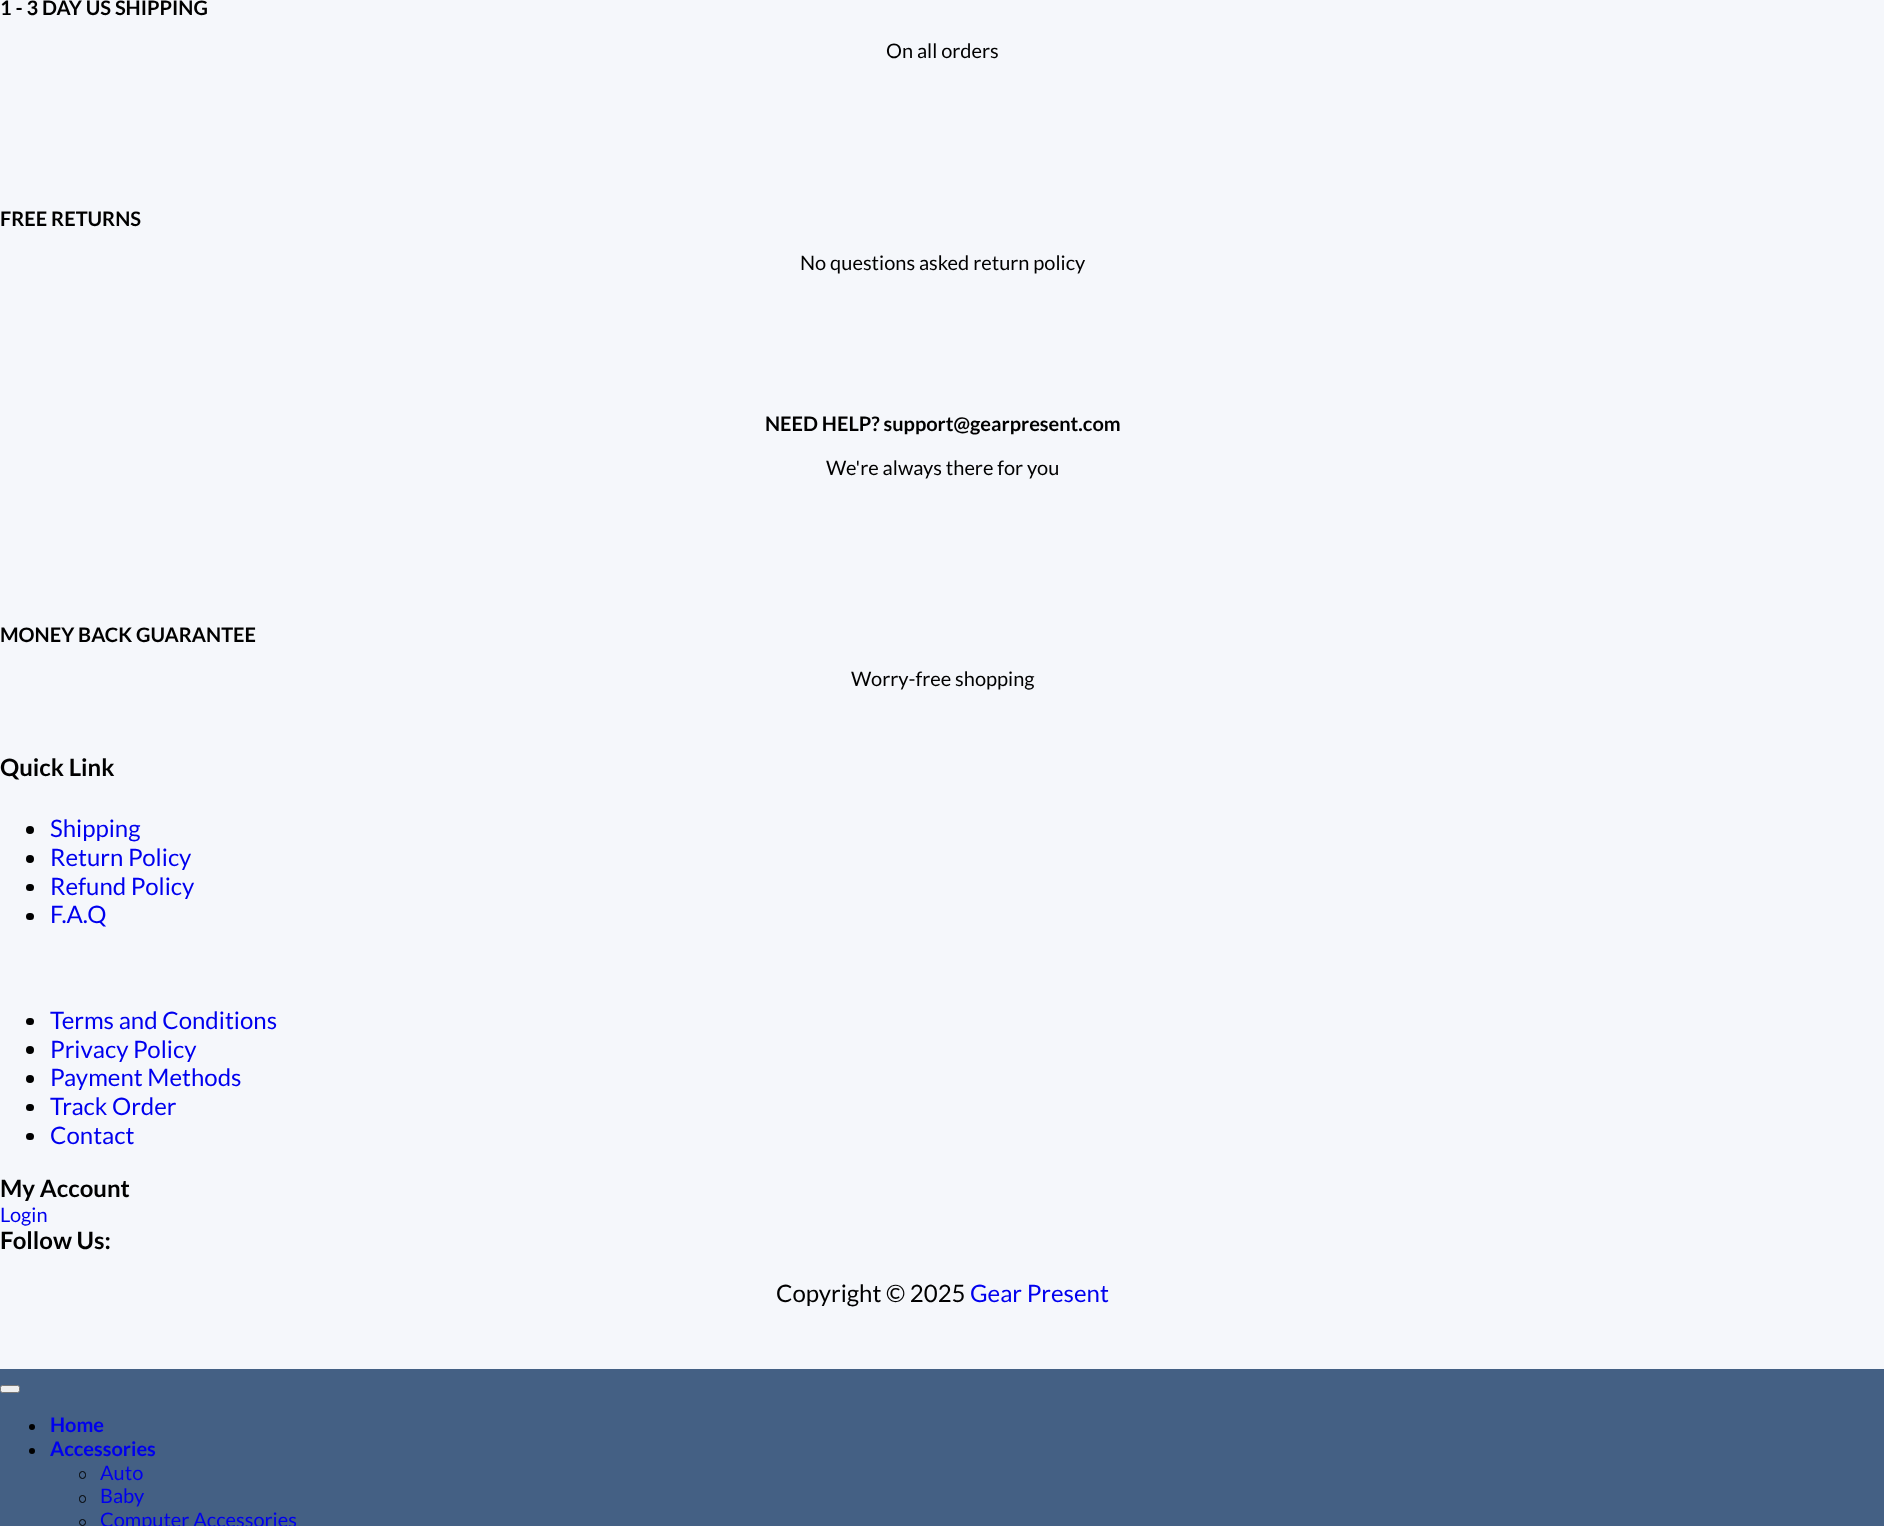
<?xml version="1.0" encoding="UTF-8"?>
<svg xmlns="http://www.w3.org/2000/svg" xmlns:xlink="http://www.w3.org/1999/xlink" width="1884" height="1526">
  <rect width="100%" height="100%" fill="#446084" />
  <rect width="1884" height="1369" fill="#f5f7fb" />
  <circle cx="30" cy="830" r="4" fill="#000000" />
  <circle cx="30" cy="859" r="4" fill="#000000" />
  <rect x="26" y="884" width="8" height="7" rx="3.5" fill="#000000" />
  <rect x="26" y="913" width="8" height="7" rx="3.5" fill="#000000" />
  <rect x="26" y="1018" width="8" height="7" rx="3.5" fill="#000000" />
  <circle cx="30" cy="1050" r="4" fill="#000000" />
  <circle cx="30" cy="1079" r="4" fill="#000000" />
  <rect x="26" y="1104" width="8" height="7" rx="3.5" fill="#000000" />
  <rect x="26" y="1133" width="8" height="7" rx="3.5" fill="#000000" />
  <rect x="0.5" y="1385.5" width="19" height="7" rx="2" fill="#efefef" stroke="#767676" />
  <circle cx="32" cy="1427" r="3" fill="#000000" />
  <circle cx="32" cy="1451" r="3" fill="#000000" />
  <rect x="79.5" y="1471.5" width="6" height="7" rx="3" fill="none" stroke="#000000" />
  <rect x="79.5" y="1495.5" width="6" height="7" rx="3" fill="none" stroke="#000000" />
  <circle cx="82.5" cy="1522.5" r="3" fill="none" stroke="#000000" />
  <text x="0" y="15" style="font-family: Lato; font-size: 20px; font-weight: bold; fill: #000000">1 - 3 DAY US SHIPPING</text>
  <text x="886" y="58" style="font-family: Lato; font-size: 20px; fill: #000000">On all orders</text>
  <text x="0" y="226" style="font-family: Lato; font-size: 20px; font-weight: bold; fill: #000000">FREE RETURNS</text>
  <text x="800" y="270" style="font-family: Lato; font-size: 20px; fill: #000000">No questions asked return policy</text>
  <text x="765" y="431" style="font-family: Lato; font-size: 20px; font-weight: bold; fill: #000000">NEED HELP? support@gearpresent.com</text>
  <text x="826" y="475" style="font-family: Lato; font-size: 20px; fill: #000000">We're always there for you</text>
  <text x="0" y="642" style="font-family: Lato; font-size: 20px; font-weight: bold; fill: #000000">MONEY BACK GUARANTEE</text>
  <text x="851" y="686" style="font-family: Lato; font-size: 20px; fill: #000000">Worry-free shopping</text>
  <text x="0" y="776" style="font-family: Lato; font-size: 24px; font-weight: bold; fill: #000000">Quick Link</text>
  <text x="50" y="837" style="font-family: Lato; font-size: 24px; fill: #0000ee">Shipping</text>
  <text x="50" y="866" style="font-family: Lato; font-size: 24px; fill: #0000ee">Return Policy</text>
  <text x="50" y="895" style="font-family: Lato; font-size: 24px; fill: #0000ee">Refund Policy</text>
  <text x="50" y="923" style="font-family: Lato; font-size: 24px; fill: #0000ee">F.A.Q</text>
  <text x="50" y="1029" style="font-family: Lato; font-size: 24px; fill: #0000ee">Terms and Conditions</text>
  <text x="50" y="1058" style="font-family: Lato; font-size: 24px; fill: #0000ee">Privacy Policy</text>
  <text x="50" y="1086" style="font-family: Lato; font-size: 24px; fill: #0000ee">Payment Methods</text>
  <text x="50" y="1115" style="font-family: Lato; font-size: 24px; fill: #0000ee">Track Order</text>
  <text x="50" y="1144" style="font-family: Lato; font-size: 24px; fill: #0000ee">Contact</text>
  <text x="0" y="1197" style="font-family: Lato; font-size: 24px; font-weight: bold; fill: #000000">My Account</text>
  <text x="0" y="1222" style="font-family: Lato; font-size: 20px; fill: #0000ee">Login</text>
  <text x="0" y="1249" style="font-family: Lato; font-size: 24px; font-weight: bold; fill: #000000">Follow Us:</text>
  <text x="776" y="1302" style="font-family: Lato; font-size: 24px; fill: #000000">Copyright © 2025</text>
  <text x="970" y="1302" style="font-family: Lato; font-size: 24px; fill: #0000ee">Gear Present</text>
  <text x="50" y="1432" style="font-family: Lato; font-size: 20px; font-weight: bold; fill: #0000ee">Home</text>
  <text x="50" y="1456" style="font-family: Lato; font-size: 20px; font-weight: bold; fill: #0000ee">Accessories</text>
  <text x="100" y="1480" style="font-family: Lato; font-size: 20px; fill: #0000ee">Auto</text>
  <text x="100" y="1503" style="font-family: Lato; font-size: 20px; fill: #0000ee">Baby</text>
  <text x="100" y="1527" style="font-family: Lato; font-size: 20px; fill: #0000ee">Computer Accessories</text>
</svg>
